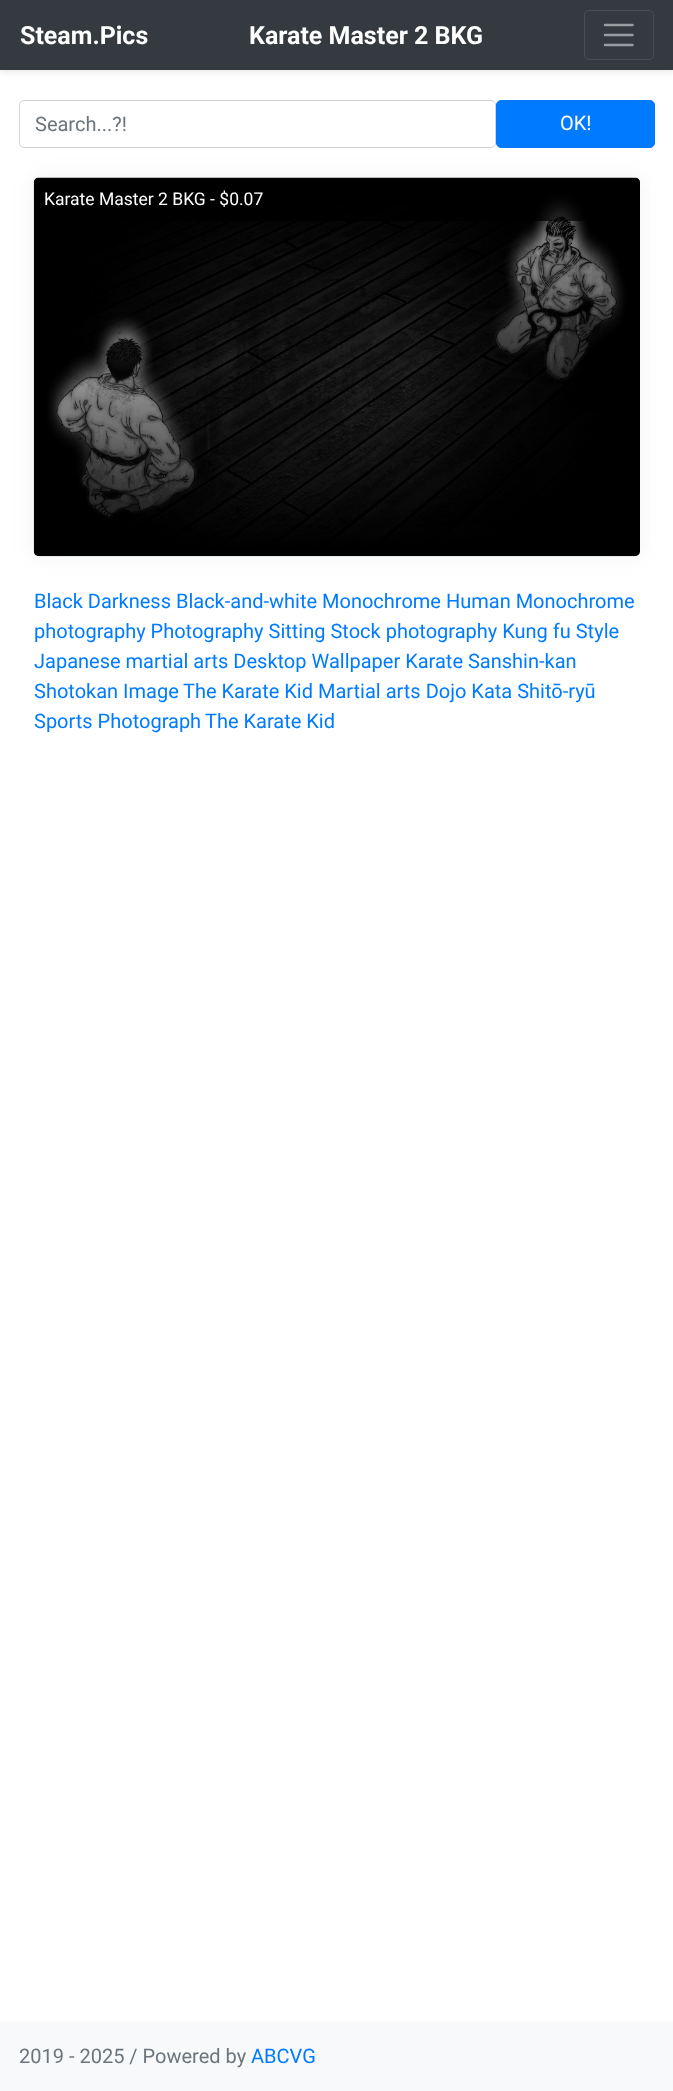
<?xml version="1.0" encoding="UTF-8"?>
<svg xmlns="http://www.w3.org/2000/svg" xmlns:xlink="http://www.w3.org/1999/xlink" width="673" height="2091">
  <rect width="100%" height="100%" fill="#ffffff" />
  <rect y="3" width="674" height="70" fill="#000000" fill-opacity="0.07" filter="blur(2.5px)" />
  <rect width="673" height="70" fill="#343a40" />
  <rect x="584.5" y="10.5" width="69" height="49" rx="4.5" fill="none" stroke="#484e53" />
  <path d="M 605 25 h 27.5 m -27.5 10 h 27.5 m -27.5 10 h 27.5" fill="none" stroke="#9a9da0" stroke-width="2.5" stroke-linecap="round" />
  <rect x="19.5" y="100.5" width="476" height="47" rx="4.5" fill="none" stroke="#ced4da" />
  <rect x="496.5" y="100.5" width="158" height="47" rx="4.5" fill="#007bff" stroke="#007bff" />
  <rect x="34" y="178" width="606" height="378" rx="5" fill="#9aa1ab" fill-opacity="0.15" filter="blur(9.5px)" />
  <image x="33" y="177" width="607" height="380" xlink:href="image1.png" />
  <path d="M 39 178 h 596 c 3 0 5 2 5 5 v 38 h -606 v -38 c 0 -3 2 -5 5 -5 z" fill="#000000" fill-opacity="0.7" />
  <rect y="2021" width="673" height="70" fill="#f8f9fa" />
  <text x="20" y="44" style="font-family: Roboto; font-size: 25px; font-weight: bold; fill: #ffffff">Steam.Pics</text>
  <text x="249" y="44" style="font-family: Roboto; font-size: 25px; font-weight: bold; fill: #ffffff">Karate Master 2 BKG</text>
  <text x="35" y="131" style="font-family: Roboto; font-size: 20px; fill: #6c757d">Search...?!</text>
  <text x="560" y="130" style="font-family: Roboto; font-size: 20px; fill: #ffffff">OK!</text>
  <text x="44" y="205" style="font-family: Roboto; font-size: 17.5px; fill: #ffffff">Karate Master 2 BKG - $0.07</text>
  <text x="34" y="608" style="font-family: Roboto; font-size: 20px; fill: #007bff">Black Darkness Black-and-white Monochrome Human Monochrome</text>
  <text x="34" y="638" style="font-family: Roboto; font-size: 20px; fill: #007bff">photography Photography Sitting Stock photography Kung fu Style</text>
  <text x="34" y="668" style="font-family: Roboto; font-size: 20px; fill: #007bff">Japanese martial arts Desktop Wallpaper Karate Sanshin-kan</text>
  <text x="34" y="698" style="font-family: Roboto; font-size: 20px; fill: #007bff">Shotokan Image</text>
  <text x="183" y="698" style="font-family: Roboto; font-size: 20px; fill: #007bff">The Karate Kid Martial arts Dojo Kata Shitō-ryū</text>
  <text x="34" y="728" style="font-family: Roboto; font-size: 20px; fill: #007bff">Sports Photograph</text>
  <text x="205" y="728" style="font-family: Roboto; font-size: 20px; fill: #007bff">The Karate Kid</text>
  <text x="19" y="2063" style="font-family: Roboto; font-size: 20px; fill: #6c757d">2019 - 2025 / Powered by</text>
  <text x="251" y="2063" style="font-family: Roboto; font-size: 20px; fill: #007bff">ABCVG</text>
</svg>
